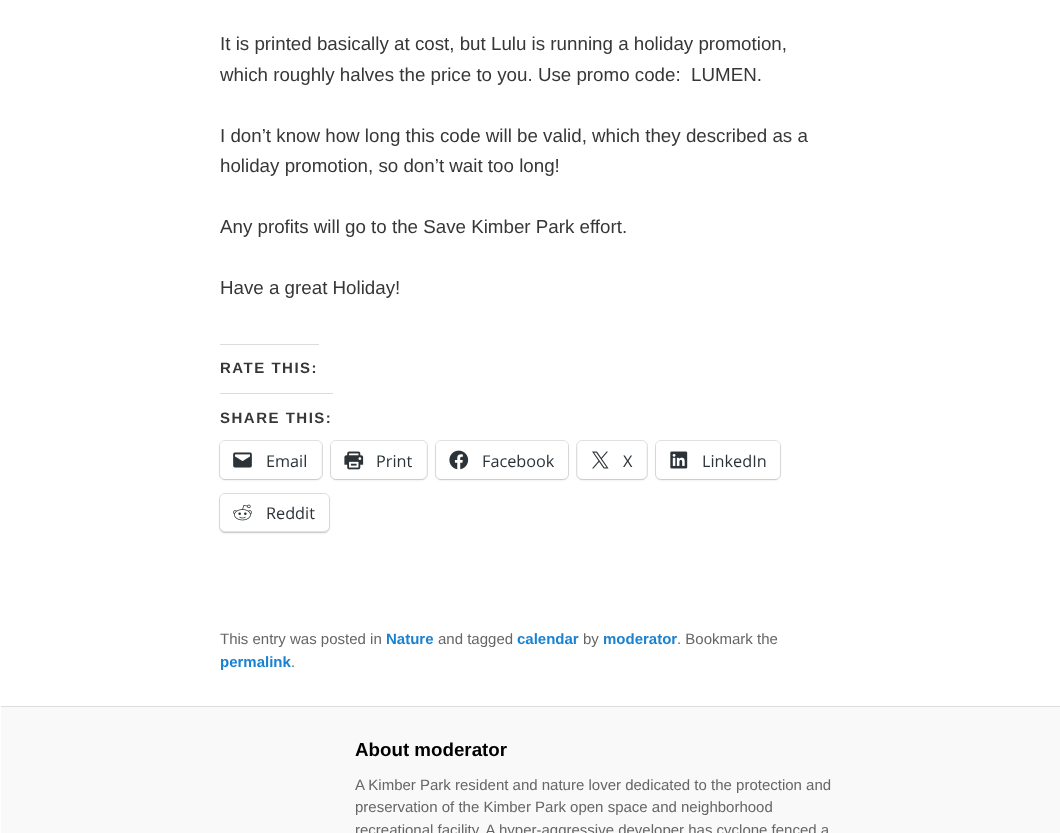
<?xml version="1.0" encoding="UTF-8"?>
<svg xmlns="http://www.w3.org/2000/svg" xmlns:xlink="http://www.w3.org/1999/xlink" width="1060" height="833">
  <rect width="100%" height="100%" fill="#ffffff" />
  <rect x="220" y="344" width="99" height="1" fill="#dcdcde" />
  <rect x="220" y="393" width="113" height="1" fill="#dcdcde" />
  <rect x="219.5" y="440.5" width="103" height="39" rx="5.5" fill="none" stroke="#e0e0e0" />
  <rect x="220" y="443" width="101" height="37" rx="5" fill="#000000" fill-opacity="0.12" filter="blur(1px)" />
  <rect x="220" y="441" width="101" height="38" rx="5" fill="#ffffff" />
  <image x="233" y="452" width="19" height="16" xlink:href="image1.png" />
  <rect x="330.5" y="440.5" width="97" height="39" rx="5.5" fill="none" stroke="#e0e0e0" />
  <rect x="331" y="443" width="95" height="37" rx="5" fill="#000000" fill-opacity="0.12" filter="blur(1px)" />
  <rect x="331" y="441" width="95" height="38" rx="5" fill="#ffffff" />
  <image x="344" y="451" width="20" height="19" xlink:href="image2.png" />
  <rect x="435.5" y="440.5" width="133" height="39" rx="5.5" fill="none" stroke="#e0e0e0" />
  <rect x="436" y="443" width="132" height="37" rx="5" fill="#000000" fill-opacity="0.12" filter="blur(1px)" />
  <rect x="436" y="441" width="132" height="38" rx="5" fill="#ffffff" />
  <image x="449" y="450" width="20" height="20" xlink:href="image3.png" />
  <rect x="576.5" y="440.5" width="71" height="39" rx="5.5" fill="none" stroke="#e0e0e0" />
  <rect x="578" y="443" width="68" height="37" rx="5" fill="#000000" fill-opacity="0.12" filter="blur(1px)" />
  <rect x="578" y="441" width="68" height="38" rx="5" fill="#ffffff" />
  <image x="592" y="451" width="17" height="18" xlink:href="image4.png" />
  <rect x="655.5" y="440.5" width="125" height="39" rx="5.5" fill="none" stroke="#e0e0e0" />
  <rect x="656" y="443" width="124" height="37" rx="5" fill="#000000" fill-opacity="0.12" filter="blur(1px)" />
  <rect x="656" y="441" width="124" height="38" rx="5" fill="#ffffff" />
  <image x="670" y="451" width="18" height="18" xlink:href="image5.png" />
  <rect x="219.5" y="493.5" width="110" height="39" rx="5.5" fill="none" stroke="#e0e0e0" />
  <rect x="220" y="495" width="109" height="38" rx="5" fill="#000000" fill-opacity="0.12" filter="blur(1px)" />
  <rect x="220" y="494" width="109" height="37" rx="5" fill="#ffffff" />
  <image x="233" y="504" width="19" height="17" xlink:href="image6.png" />
  <rect x="1" y="707" width="1059" height="126" fill="#f9f9f9" />
  <rect x="1" y="706" width="1059" height="1" fill="#dddddd" />
  <text x="220" y="50" style="font-family: Liberation Sans; font-size: 18.75px; fill: #373737">It is printed basically at cost, but Lulu is running a holiday promotion,</text>
  <text x="220" y="81" style="font-family: Liberation Sans; font-size: 18.75px; fill: #373737" xml:space="preserve">which roughly halves the price to you. Use promo code:  LUMEN.</text>
  <text x="220" y="142" style="font-family: Liberation Sans; font-size: 18.75px; fill: #373737">I don’t know how long this code will be valid, which they described as a</text>
  <text x="220" y="172" style="font-family: Liberation Sans; font-size: 18.75px; fill: #373737">holiday promotion, so don’t wait too long!</text>
  <text x="220" y="233" style="font-family: Liberation Sans; font-size: 18.75px; fill: #373737">Any profits will go to the Save Kimber Park effort.</text>
  <text x="220" y="294" style="font-family: Liberation Sans; font-size: 18.75px; fill: #373737">Have a great Holiday!</text>
  <text x="220" y="373" style="font-family: Liberation Sans; font-size: 15px; font-weight: bold; letter-spacing: 1.5px; fill: #373737">RATE THIS:</text>
  <text x="220" y="423" style="font-family: Liberation Sans; font-size: 15px; font-weight: bold; letter-spacing: 1.5px; fill: #373737">SHARE THIS:</text>
  <text x="266" y="467" style="font-family: Open Sans; font-size: 16.25px; fill: #2c3338">Email</text>
  <text x="376" y="467" style="font-family: Open Sans; font-size: 16.25px; fill: #2c3338">Print</text>
  <text x="482" y="467" style="font-family: Open Sans; font-size: 16.25px; fill: #2c3338">Facebook</text>
  <text x="623" y="467" style="font-family: Open Sans; font-size: 16.25px; fill: #2c3338">X</text>
  <text x="702" y="467" style="font-family: Open Sans; font-size: 16.25px; fill: #2c3338">LinkedIn</text>
  <text x="266" y="519" style="font-family: Open Sans; font-size: 16.25px; fill: #2c3338">Reddit</text>
  <text x="220" y="644" style="font-family: Liberation Sans; font-size: 15px; fill: #666666">This entry was posted in</text>
  <text x="386" y="644" style="font-family: Liberation Sans; font-size: 15px; font-weight: bold; fill: #1982d1">Nature</text>
  <text x="438" y="644" style="font-family: Liberation Sans; font-size: 15px; fill: #666666">and tagged</text>
  <text x="517" y="644" style="font-family: Liberation Sans; font-size: 15px; font-weight: bold; fill: #1982d1">calendar</text>
  <text x="583" y="644" style="font-family: Liberation Sans; font-size: 15px; fill: #666666">by</text>
  <text x="603" y="644" style="font-family: Liberation Sans; font-size: 15px; font-weight: bold; fill: #1982d1">moderator</text>
  <text x="677" y="644" style="font-family: Liberation Sans; font-size: 15px; fill: #666666">. Bookmark the</text>
  <text x="220" y="667" style="font-family: Liberation Sans; font-size: 15px; font-weight: bold; fill: #1982d1">permalink</text>
  <text x="291" y="667" style="font-family: Liberation Sans; font-size: 15px; fill: #666666">.</text>
  <text x="355" y="756" style="font-family: Liberation Sans; font-size: 18.75px; font-weight: bold; fill: #000000">About moderator</text>
  <text x="355" y="790" style="font-family: Liberation Sans; font-size: 15px; fill: #666666">A Kimber Park resident and nature lover dedicated to the protection and</text>
  <text x="355" y="812" style="font-family: Liberation Sans; font-size: 15px; fill: #666666">preservation of the Kimber Park open space and neighborhood</text>
  <text x="355" y="835" style="font-family: Liberation Sans; font-size: 15px; fill: #666666">recreational facility. A hyper-aggressive developer has cyclone fenced a</text>
</svg>
